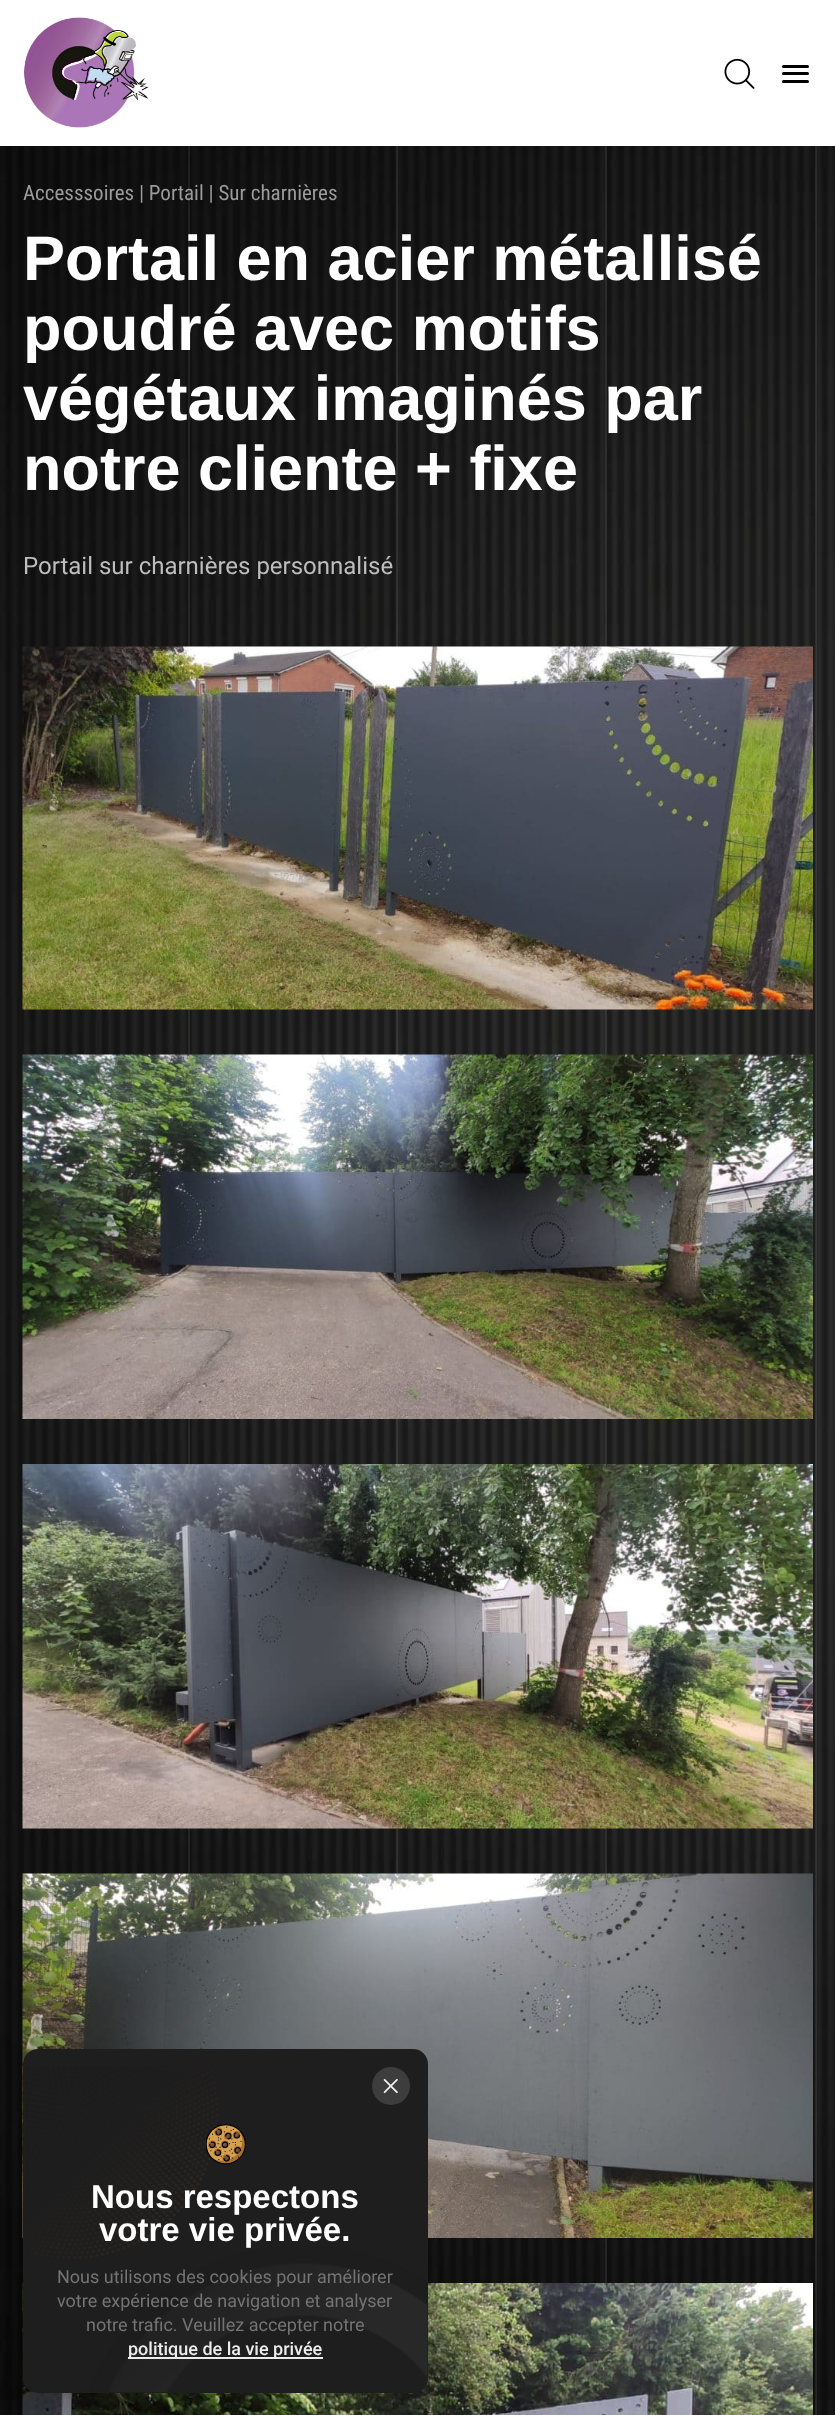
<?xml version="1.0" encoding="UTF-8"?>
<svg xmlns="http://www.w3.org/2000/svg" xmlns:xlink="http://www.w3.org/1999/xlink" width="835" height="2415">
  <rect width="100%" height="100%" fill="#ffffff" />
  <image x="0" y="146" width="835" height="2269" xlink:href="image1.png" />
  <image x="24" y="17" width="125" height="111" xlink:href="image2.png" />
  <image x="724" y="58" width="31" height="31" xlink:href="image3.png" />
  <rect x="782" y="65" width="27" height="3" rx="1.5" fill="#000000" />
  <rect x="782" y="72" width="27" height="3" rx="1.5" fill="#000000" />
  <rect x="782" y="80" width="27" height="3" rx="1.5" fill="#000000" />
  <rect x="188" y="146" width="2" height="1728" fill="#cccccc" fill-opacity="0.1" />
  <rect x="396" y="146" width="2" height="1728" fill="#cccccc" fill-opacity="0.1" />
  <rect x="605" y="146" width="2" height="2137" fill="#cccccc" fill-opacity="0.1" />
  <rect x="815" y="146" width="2" height="2269" fill="#cccccc" fill-opacity="0.1" />
  <image x="22" y="646" width="791" height="364" xlink:href="image4.png" />
  <image x="22" y="1054" width="791" height="365" xlink:href="image5.png" />
  <image x="22" y="1464" width="791" height="365" xlink:href="image6.png" />
  <image x="22" y="1873" width="791" height="365" xlink:href="image7.png" />
  <image x="22" y="2283" width="791" height="132" xlink:href="image8.png" />
  <rect x="23" y="2049" width="405" height="344" rx="15" fill="#1e1e1e" />
  <image x="25" y="2066" width="403" height="326" xlink:href="image9.png" />
  <circle cx="391" cy="2086" r="19" fill="#3d3d3d" />
  <image x="383" y="2079" width="15" height="15" xlink:href="image10.png" />
  <image x="206" y="2124" width="40" height="41" xlink:href="image11.png" />
  <rect x="128" y="2357" width="195" height="2" fill="#ececec" />
  <text x="23" y="200" style="font-family: Roboto Condensed; font-size: 21px; fill: #9b9b9b">Accesssoires | Portail | Sur charnières</text>
  <text x="23" y="280" style="font-family: Liberation Sans; font-size: 63px; font-weight: bold; fill: #ffffff">Portail en acier métallisé</text>
  <text x="23" y="350" style="font-family: Liberation Sans; font-size: 63px; font-weight: bold; fill: #ffffff">poudré avec motifs</text>
  <text x="23" y="420" style="font-family: Liberation Sans; font-size: 63px; font-weight: bold; fill: #ffffff">végétaux imaginés par</text>
  <text x="23" y="490" style="font-family: Liberation Sans; font-size: 63px; font-weight: bold; fill: #ffffff">notre cliente + fixe</text>
  <text x="23" y="574" style="font-family: Roboto; font-size: 24px; fill: #bdbdbd">Portail sur charnières personnalisé</text>
  <text x="91" y="2208" style="font-family: Liberation Sans; font-size: 33px; font-weight: bold; fill: #ffffff">Nous respectons</text>
  <text x="99" y="2241" style="font-family: Liberation Sans; font-size: 33px; font-weight: bold; fill: #ffffff">votre vie privée.</text>
  <text x="57" y="2283" style="font-family: Roboto; font-size: 18px; fill: #747474">Nous utilisons des cookies pour améliorer</text>
  <text x="57" y="2307" style="font-family: Roboto; font-size: 18px; fill: #747474">votre expérience de navigation et analyser</text>
  <text x="86" y="2331" style="font-family: Roboto; font-size: 18px; fill: #747474">notre trafic. Veuillez accepter notre</text>
  <text x="128" y="2355" style="font-family: Roboto; font-size: 18px; font-weight: 500; fill: #ececec">politique de la vie privée</text>
</svg>
